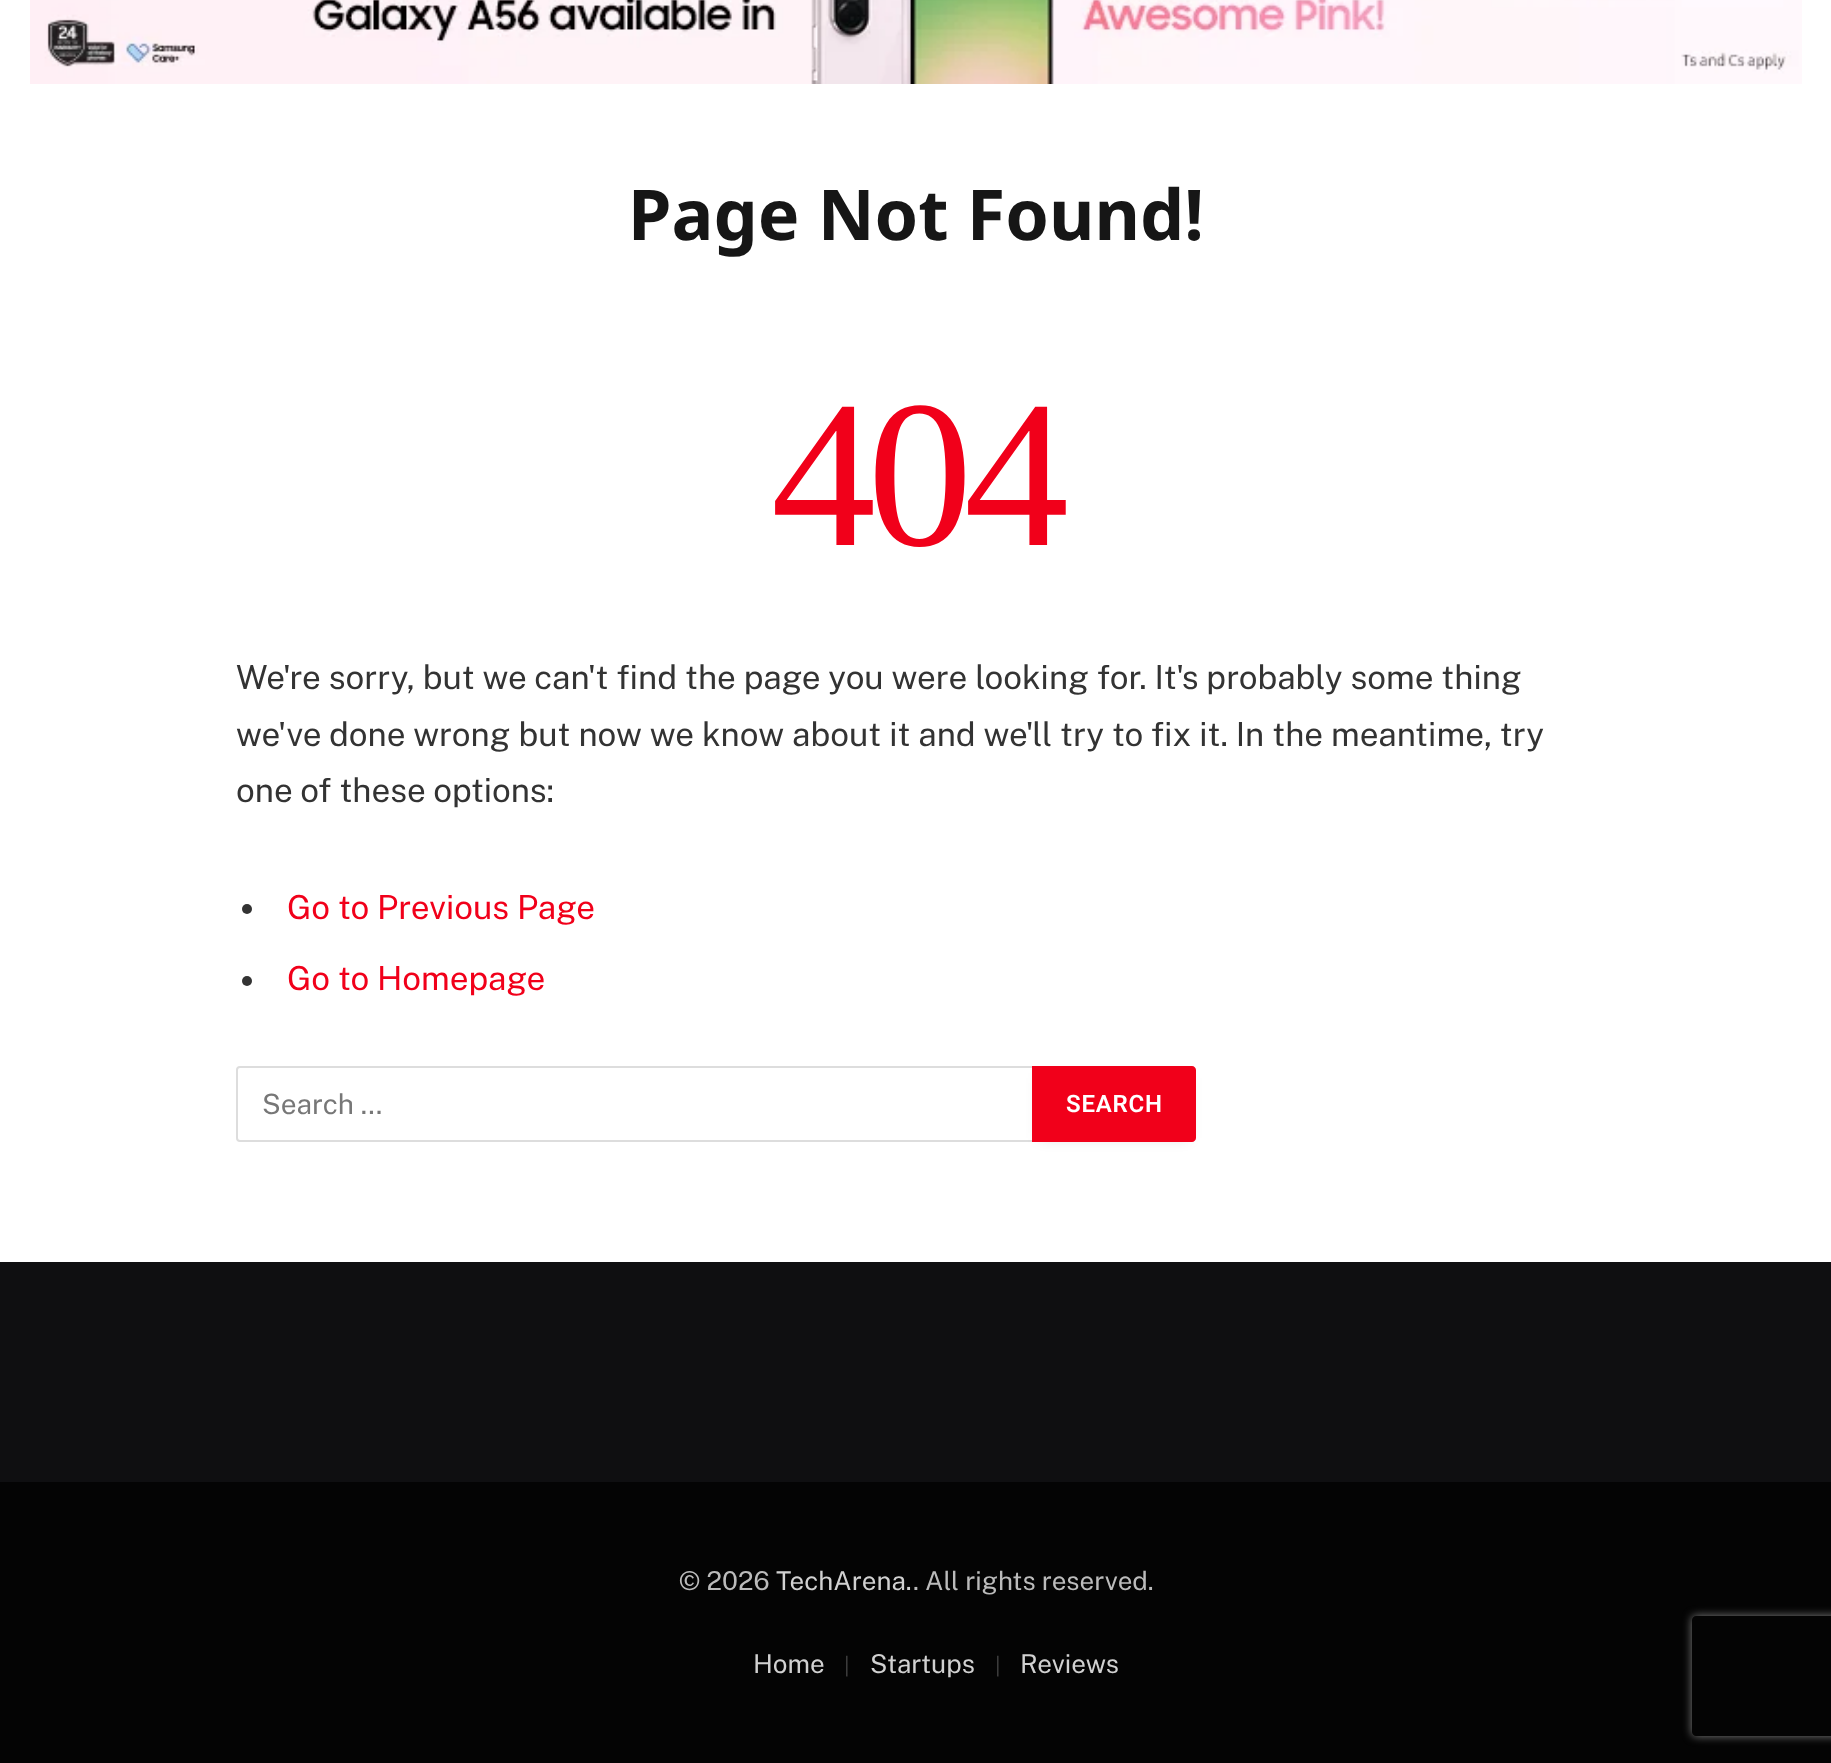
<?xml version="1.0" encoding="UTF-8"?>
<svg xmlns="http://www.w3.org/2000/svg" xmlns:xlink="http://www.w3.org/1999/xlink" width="1831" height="1763">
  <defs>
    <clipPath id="clip1"><path d="M 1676 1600 h 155 v 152 h -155 z m 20 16 h 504 c 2 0 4 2 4 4 v 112 c 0 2 -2 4 -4 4 h -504 c -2 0 -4 -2 -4 -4 v -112 c 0 -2 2 -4 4 -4 z" clip-rule="evenodd" /></clipPath>
  </defs>
  <rect width="100%" height="100%" fill="#ffffff" />
  <image x="30" y="0" width="1772" height="84" xlink:href="image1.png" />
  <circle cx="247" cy="909" r="5" fill="#333333" />
  <circle cx="247" cy="981" r="5" fill="#333333" />
  <rect x="237" y="1067" width="798" height="74" rx="3" fill="none" stroke="#dddddd" stroke-width="2" />
  <rect x="1040" y="1078" width="148" height="60" fill="#000000" fill-opacity="0.16" filter="blur(7px)" />
  <path d="M 1032 1066 h 160 c 2 0 4 2 4 4 v 68 c 0 2 -2 4 -4 4 h -160 z" fill="#f1001a" />
  <rect y="1262" width="1831" height="220" fill="#0f0f11" />
  <rect y="1482" width="1831" height="281" fill="#040404" />
  <g clip-path="url(#clip1)">
    <rect x="1692" y="1616" width="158" height="120" rx="4" fill="#808080" filter="blur(5px)" />
  </g>
  <text x="628" y="240" style="font-family: Noto Sans; font-size: 70px; font-weight: bold; fill: #161616">Page Not Found!</text>
  <text x="771" y="545" style="font-family: Liberation Serif; font-size: 210px; letter-spacing: -8.5px; fill: #f1001a">404</text>
  <text x="236" y="689" style="font-family: Public Sans; font-size: 33.2px; fill: #333333">We're sorry, but we can't find the page you were looking for. It's probably some thing</text>
  <text x="236" y="746" style="font-family: Public Sans; font-size: 33.2px; fill: #333333">we've done wrong but now we know about it and we'll try to fix it. In the meantime, try</text>
  <text x="236" y="802" style="font-family: Public Sans; font-size: 33.2px; fill: #333333">one of these options:</text>
  <text x="287" y="919" style="font-family: Public Sans; font-size: 33.2px; fill: #f1001a">Go to Previous Page</text>
  <text x="287" y="990" style="font-family: Public Sans; font-size: 33.2px; fill: #f1001a">Go to Homepage</text>
  <text x="262" y="1114" style="font-family: Public Sans; font-size: 28px; fill: #777777">Search …</text>
  <text x="1066" y="1112" style="font-family: Roboto; font-size: 24px; font-weight: 600; letter-spacing: 0.75px; fill: #ffffff">SEARCH</text>
  <text x="679" y="1590" style="font-family: Public Sans; font-size: 26px; fill: #bbbbbb">© 2026</text>
  <text x="776" y="1590" style="font-family: Public Sans; font-size: 26px; fill: #d1d1d1">TechArena.</text>
  <text x="913" y="1590" style="font-family: Public Sans; font-size: 26px; fill: #bbbbbb">. All rights reserved.</text>
  <text x="753" y="1673" style="font-family: Public Sans; font-size: 26px; fill: #d1d1d1">Home</text>
  <text x="844" y="1673" style="font-family: Public Sans; font-size: 21px; fill: #3b3b3b">|</text>
  <text x="870" y="1673" style="font-family: Public Sans; font-size: 26px; fill: #d1d1d1">Startups</text>
  <text x="995" y="1673" style="font-family: Public Sans; font-size: 21px; fill: #3b3b3b">|</text>
  <text x="1020" y="1673" style="font-family: Public Sans; font-size: 26px; fill: #d1d1d1">Reviews</text>
</svg>
